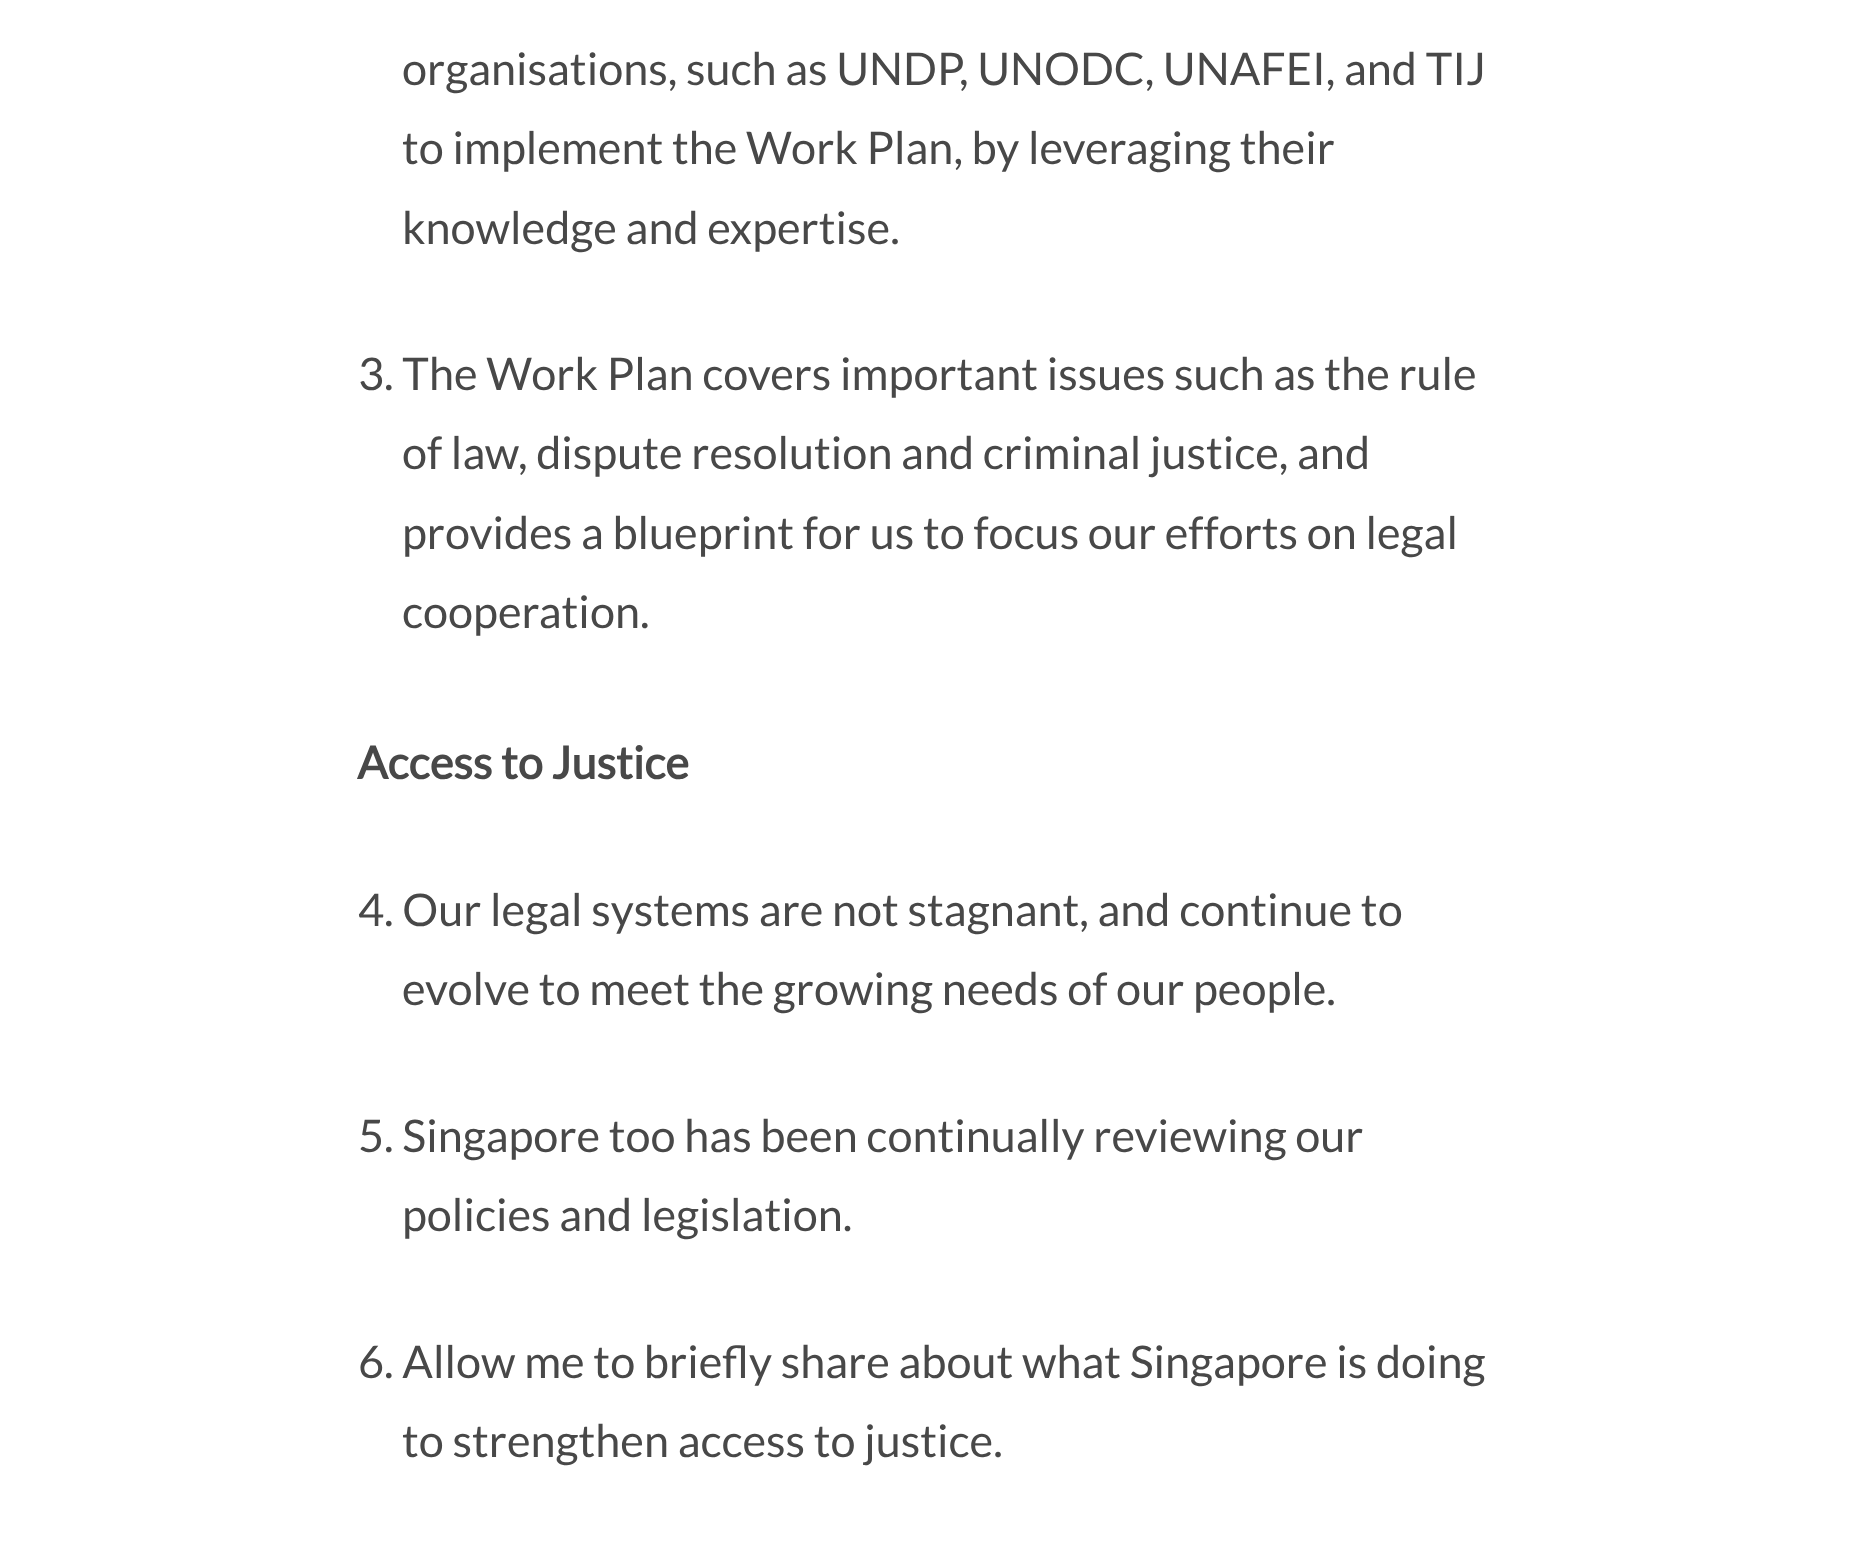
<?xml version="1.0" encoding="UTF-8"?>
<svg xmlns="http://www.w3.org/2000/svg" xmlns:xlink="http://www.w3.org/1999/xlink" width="1873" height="1550">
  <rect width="100%" height="100%" fill="#ffffff" />
  <text x="402" y="85" style="font-family: Lato; font-size: 45px; fill: #484848">organisations, such as UNDP, UNODC, UNAFEI, and TIJ</text>
  <text x="402" y="164" style="font-family: Lato; font-size: 45px; fill: #484848">to implement the Work Plan, by leveraging their</text>
  <text x="402" y="244" style="font-family: Lato; font-size: 45px; fill: #484848">knowledge and expertise.</text>
  <text x="358" y="390" style="font-family: Lato; font-size: 45px; fill: #484848">3. The Work Plan covers important issues such as the rule</text>
  <text x="402" y="469" style="font-family: Lato; font-size: 45px; fill: #484848">of law, dispute resolution and criminal justice, and</text>
  <text x="402" y="549" style="font-family: Lato; font-size: 45px; fill: #484848">provides a blueprint for us to focus our efforts on legal</text>
  <text x="402" y="628" style="font-family: Lato; font-size: 45px; fill: #484848">cooperation.</text>
  <text x="357" y="779" style="font-family: Lato; font-size: 45px; font-weight: bold; fill: #484848">Access to Justice</text>
  <text x="358" y="926" style="font-family: Lato; font-size: 45px; fill: #484848">4. Our legal systems are not stagnant, and continue to</text>
  <text x="402" y="1005" style="font-family: Lato; font-size: 45px; fill: #484848">evolve to meet the growing needs of our people.</text>
  <text x="358" y="1152" style="font-family: Lato; font-size: 45px; fill: #484848">5. Singapore too has been continually reviewing our</text>
  <text x="402" y="1231" style="font-family: Lato; font-size: 45px; fill: #484848">policies and legislation.</text>
  <text x="358" y="1378" style="font-family: Lato; font-size: 45px; fill: #484848">6. Allow me to briefly share about what Singapore is doing</text>
  <text x="402" y="1457" style="font-family: Lato; font-size: 45px; fill: #484848">to strengthen access to justice.</text>
</svg>
